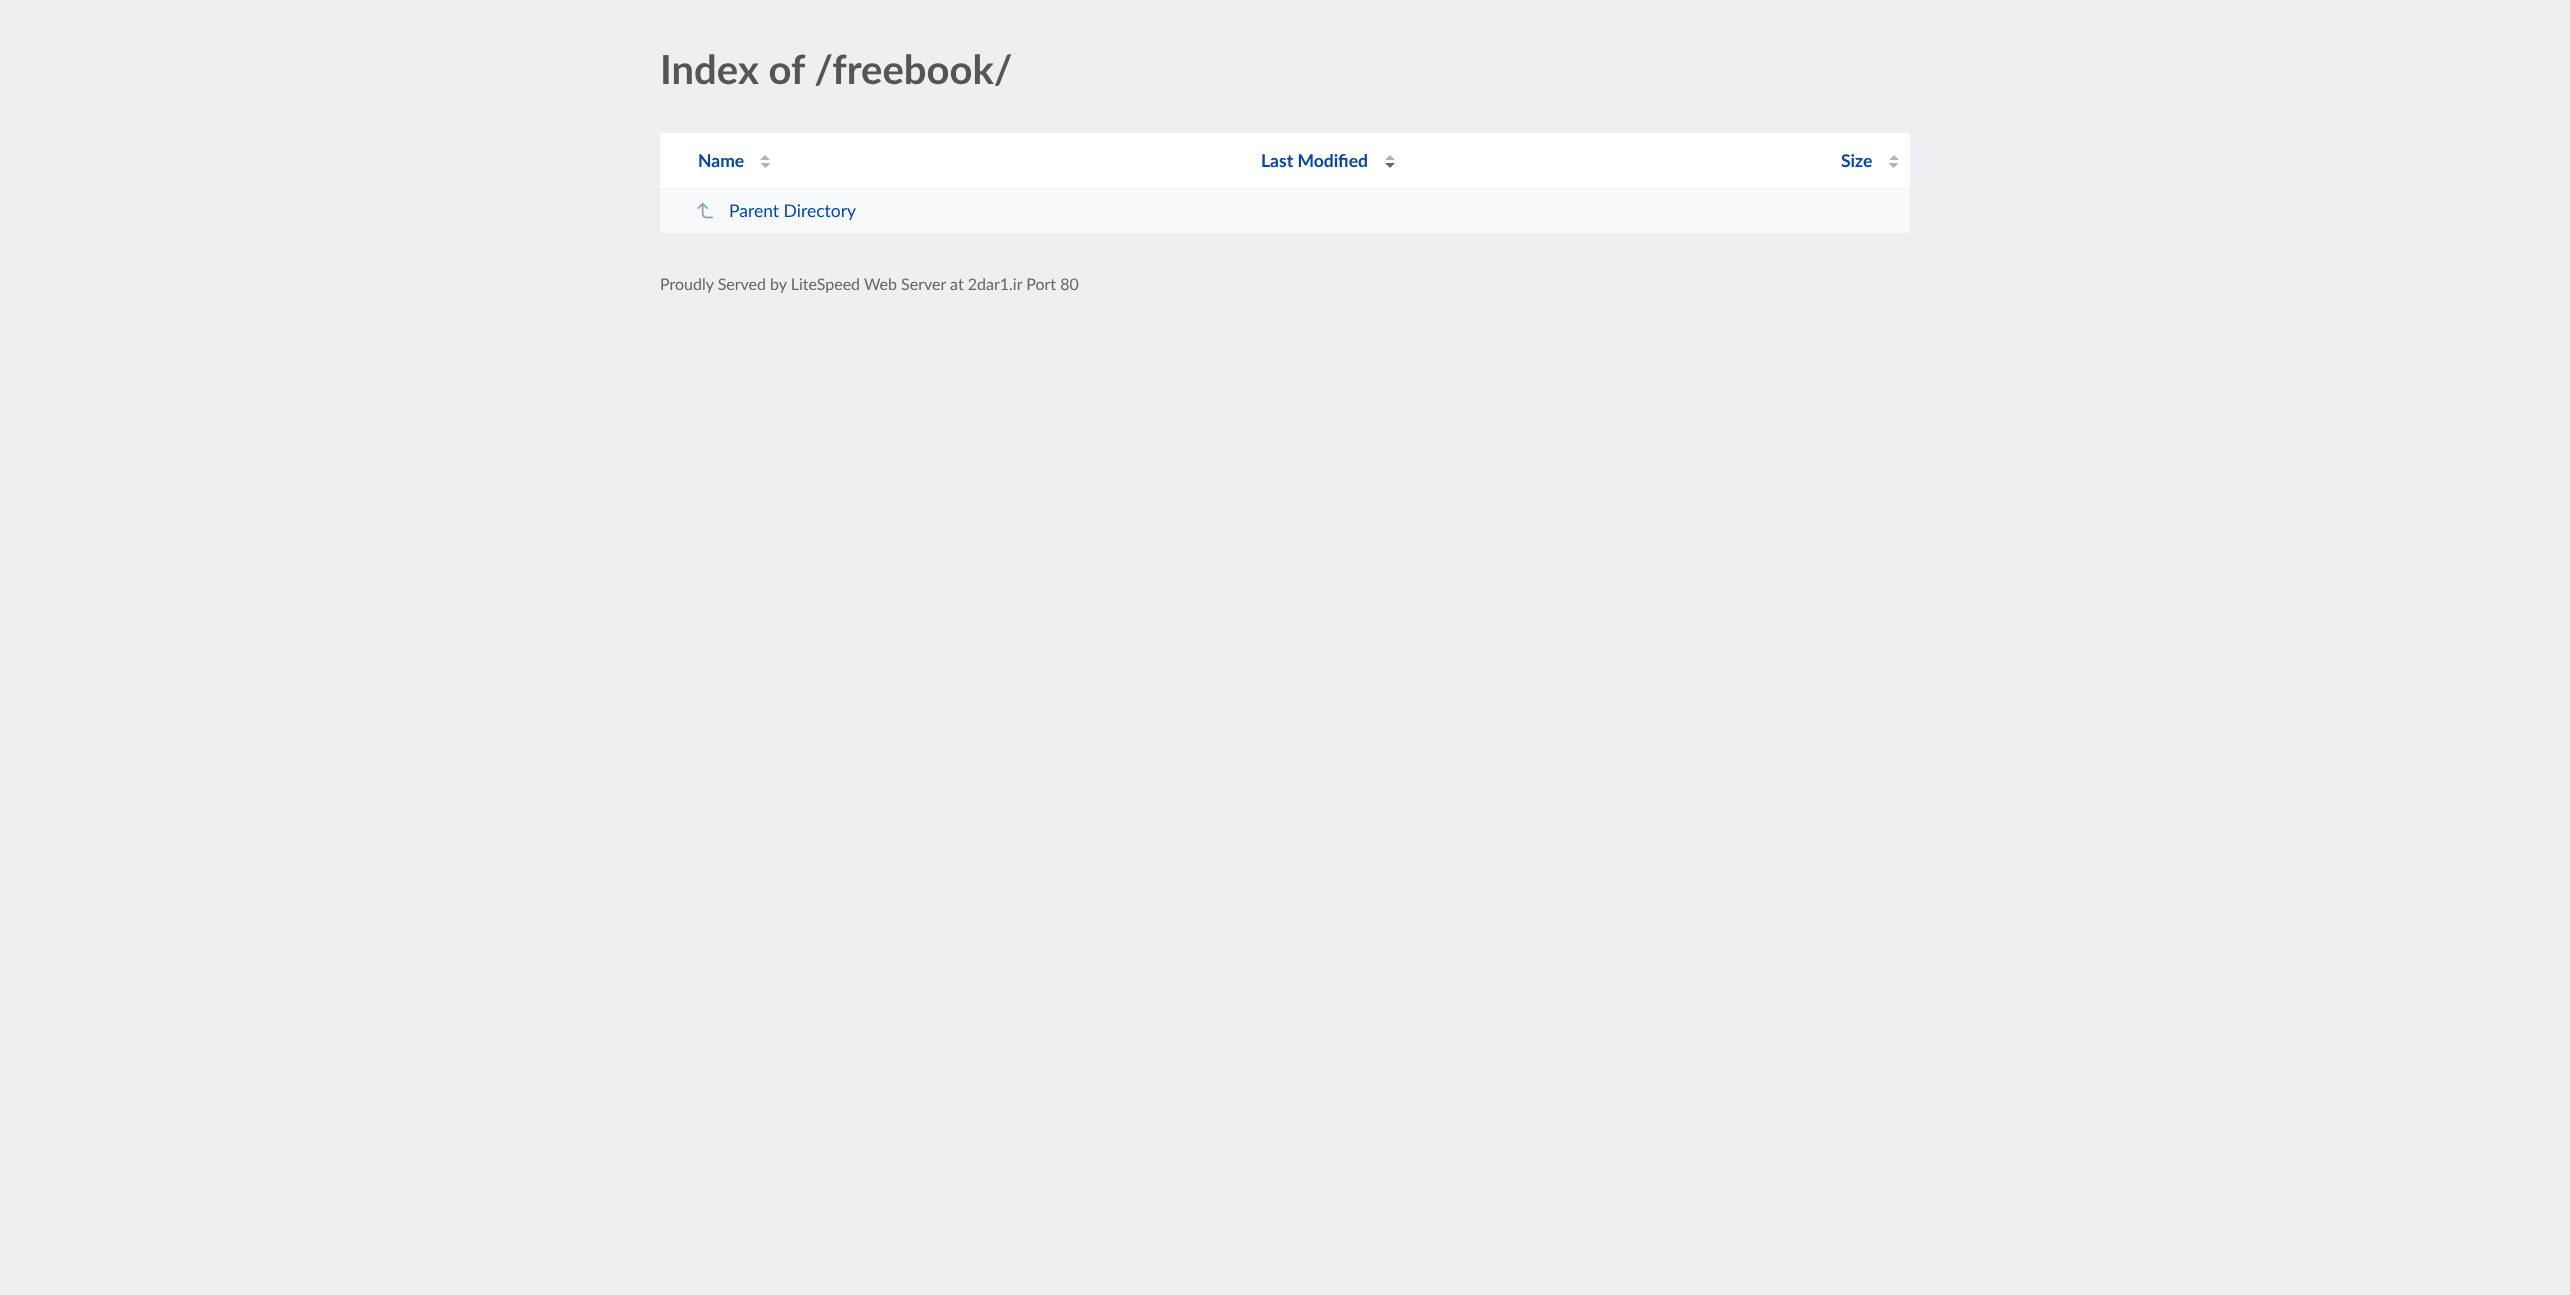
<?xml version="1.0" encoding="UTF-8"?>
<svg xmlns="http://www.w3.org/2000/svg" xmlns:xlink="http://www.w3.org/1999/xlink" width="2570" height="1295">
  <rect width="100%" height="100%" fill="#edeff0" />
  <rect x="660" y="133" width="1250" height="55" fill="#ffffff" />
  <path d="M 770 160 h -10 l 5 -5 z m -9.5 3 h 10 l -5 5 z" fill="#b3b3b3" />
  <path d="M 1395 160 h -10 l 5 -5 z" fill="#b3b3b3" />
  <path d="M 1385 163 h 10 l -5 5 z" fill="#666666" />
  <path d="M 1899 160 h -10 l 5 -5 z m -10.5 3 h 10 l -5 5 z" fill="#b3b3b3" />
  <rect x="660" y="189" width="1250" height="44" fill="#f8fafb" />
  <image x="697" y="202" width="16" height="17" xlink:href="image1.png" />
  <text x="660" y="84" style="font-family: Lato; font-size: 40px; font-weight: bold; fill: #555555">Index of /freebook/</text>
  <text x="698" y="167" style="font-family: Lato; font-size: 17.5px; font-weight: bold; fill: #0047ab">Name</text>
  <text x="1261" y="167" style="font-family: Lato; font-size: 17.5px; font-weight: bold; fill: #0047ab">Last Modified</text>
  <text x="1841" y="167" style="font-family: Lato; font-size: 17.5px; font-weight: bold; fill: #0047ab">Size</text>
  <text x="729" y="217" style="font-family: Lato; font-size: 17.5px; fill: #0047ab">Parent Directory</text>
  <text x="660" y="290" style="font-family: Lato; font-size: 16px; fill: #646464">Proudly Served by LiteSpeed Web Server at 2dar1.ir Port 80</text>
</svg>
